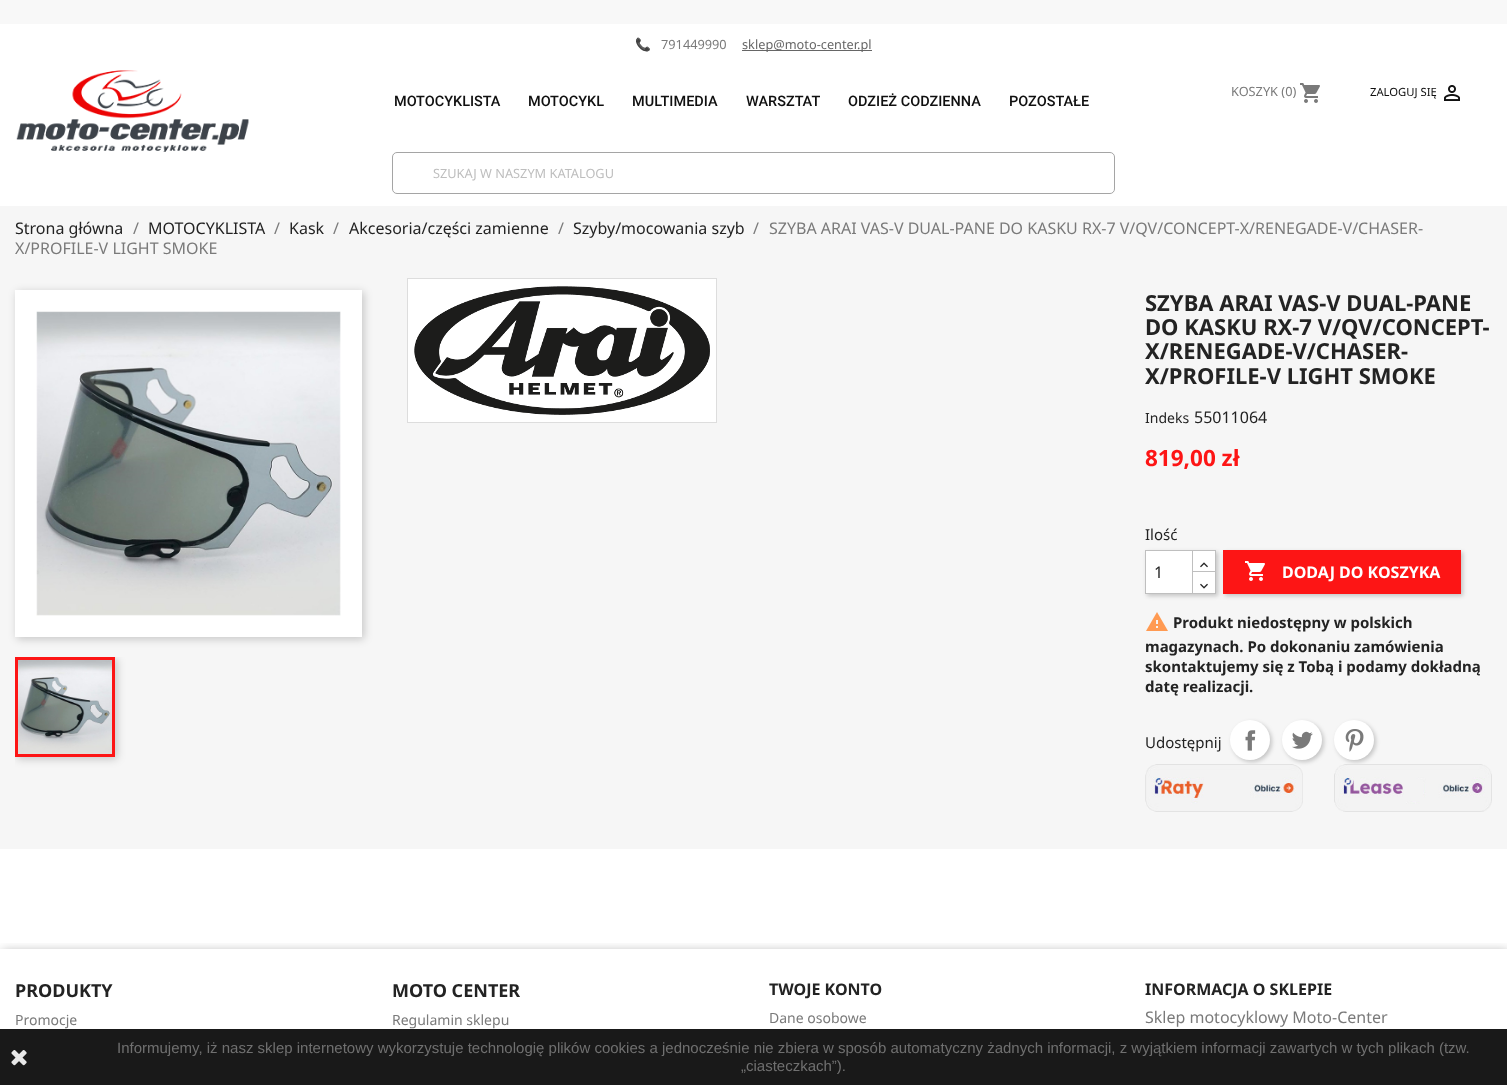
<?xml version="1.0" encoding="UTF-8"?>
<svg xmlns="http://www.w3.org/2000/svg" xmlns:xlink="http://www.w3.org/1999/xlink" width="1507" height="1085">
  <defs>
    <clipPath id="clip1"><rect x="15" y="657" width="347" height="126" /></clipPath>
    <clipPath id="clip2"><rect x="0" y="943" width="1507" height="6" /></clipPath>
    <clipPath id="clip3"><rect x="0" y="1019" width="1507" height="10" /></clipPath>
  </defs>
  <rect width="100%" height="100%" fill="#ffffff" />
  <rect y="1029" width="1507" height="56" fill="#191919" />
  <rect width="1507" height="24" fill="#f8f8f8" />
  <rect x="742" y="50" width="130" height="1" fill="#666666" />
  <image x="16" y="70" width="233" height="82" xlink:href="image1.png" />
  <rect x="392.5" y="152.5" width="722" height="41" rx="4.5" fill="none" stroke="#a5a5a5" />
  <image x="1300" y="83" width="20" height="20" xlink:href="image2.png" />
  <image x="1444" y="85" width="16" height="16" xlink:href="image3.png" />
  <rect y="206" width="1507" height="643" fill="#f6f6f6" />
  <rect x="17" y="292" width="347" height="347" fill="#000000" fill-opacity="0.2" filter="blur(4px)" />
  <rect x="15" y="290" width="347" height="347" fill="#ffffff" />
  <image x="36" y="311" width="305" height="305" xlink:href="image4.png" />
  <g clip-path="url(#clip1)">
    <rect x="17" y="659" width="100" height="100" fill="#000000" fill-opacity="0.2" filter="blur(4px)" />
  </g>
  <rect x="16.5" y="658.5" width="97" height="97" fill="none" stroke="#fd1515" stroke-width="3" />
  <image x="18" y="660" width="94" height="94" xlink:href="image5.png" />
  <rect x="407.5" y="278.5" width="309" height="144" fill="#ffffff" stroke="#dddddd" />
  <image x="414" y="286" width="296" height="129" xlink:href="image6.png" />
  <rect x="1225" y="552" width="238" height="44" fill="#000000" fill-opacity="0.2" filter="blur(2px)" />
  <rect x="1223" y="550" width="238" height="44" fill="#fd1515" />
  <rect x="1147" y="552" width="71" height="44" fill="#000000" fill-opacity="0.2" filter="blur(2px)" />
  <rect x="1193" y="551" width="22" height="20" fill="#ffffff" />
  <rect x="1192.5" y="550.5" width="23" height="22" fill="none" stroke="#bfbfbf" />
  <rect x="1192.5" y="571.5" width="23" height="22" fill="#ffffff" stroke="#bfbfbf" />
  <rect x="1145.5" y="550.5" width="47" height="43" fill="#ffffff" stroke="#bfbfbf" />
  <image x="1200" y="562" width="8" height="6" xlink:href="image7.png" />
  <image x="1200" y="583" width="8" height="6" xlink:href="image8.png" />
  <image x="1245" y="561" width="20" height="20" xlink:href="image9.png" />
  <image x="1146" y="612" width="22" height="19" xlink:href="image10.png" />
  <rect x="1232" y="722" width="40" height="40" rx="20" fill="#000000" fill-opacity="0.2" filter="blur(2px)" />
  <circle cx="1250" cy="740" r="20" fill="#ffffff" />
  <image x="1245" y="730" width="11" height="21" xlink:href="image11.png" />
  <rect x="1284" y="722" width="40" height="40" rx="20" fill="#000000" fill-opacity="0.2" filter="blur(2px)" />
  <circle cx="1302" cy="740" r="20" fill="#ffffff" />
  <image x="1292" y="731" width="21" height="18" xlink:href="image12.png" />
  <rect x="1336" y="722" width="40" height="40" rx="20" fill="#000000" fill-opacity="0.2" filter="blur(2px)" />
  <circle cx="1354" cy="740" r="20" fill="#ffffff" />
  <image x="1345" y="729" width="19" height="23" xlink:href="image13.png" />
  <image x="1145" y="764" width="158" height="48" xlink:href="image14.png" />
  <image x="1334" y="764" width="158" height="48" xlink:href="image15.png" />
  <g clip-path="url(#clip2)">
    <rect x="2" y="951" width="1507" height="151" fill="#000000" fill-opacity="0.3" filter="blur(5.5px)" />
  </g>
  <g clip-path="url(#clip3)">
    <rect y="1029" width="1507" height="56" fill="#ffffff" fill-opacity="0.9" filter="blur(5px)" />
  </g>
  <image x="11" y="1050" width="16" height="16" xlink:href="image16.png" />
  <text x="635" y="49" style="font-family: Noto Color Emoji; font-size: 12.75px; fill: #7a7a7a">📞</text>
  <text x="661" y="49" style="font-family: Noto Sans; font-size: 12.75px; fill: #7a7a7a">791449990</text>
  <text x="742" y="49" style="font-family: Noto Sans; font-size: 12.75px; fill: #666666">sklep@moto-center.pl</text>
  <text x="394" y="106" style="font-family: Roboto; font-size: 14.5px; font-weight: 500; fill: #101010">MOTOCYKLISTA</text>
  <text x="528" y="106" style="font-family: Roboto; font-size: 14.5px; font-weight: 500; fill: #101010">MOTOCYKL</text>
  <text x="632" y="106" style="font-family: Roboto; font-size: 14.5px; font-weight: 500; fill: #101010">MULTIMEDIA</text>
  <text x="746" y="106" style="font-family: Roboto; font-size: 14.5px; font-weight: 500; fill: #101010">WARSZTAT</text>
  <text x="848" y="106" style="font-family: Roboto; font-size: 14.5px; font-weight: 500; fill: #101010">ODZIEŻ CODZIENNA</text>
  <text x="1009" y="106" style="font-family: Roboto; font-size: 14.5px; font-weight: 500; fill: #101010">POZOSTAŁE</text>
  <text x="433" y="178" style="font-family: Noto Sans; font-size: 12.75px; fill: #bebebe">SZUKAJ W NASZYM KATALOGU</text>
  <text x="1231" y="96" style="font-family: Noto Sans; font-size: 12.75px; fill: #7a7a7a">KOSZYK (0)</text>
  <text x="1370" y="96" style="font-family: Noto Sans; font-size: 11.25px; fill: #101010">ZALOGUJ SIĘ</text>
  <text x="15" y="234" style="font-family: Noto Sans; font-size: 16px; fill: #232323">Strona główna</text>
  <text x="133" y="234" style="font-family: Noto Sans; font-size: 16px; fill: #7a7a7a">/</text>
  <text x="148" y="234" style="font-family: Noto Sans; font-size: 16px; fill: #232323">MOTOCYKLISTA</text>
  <text x="274" y="234" style="font-family: Noto Sans; font-size: 16px; fill: #7a7a7a">/</text>
  <text x="289" y="234" style="font-family: Noto Sans; font-size: 16px; fill: #232323">Kask</text>
  <text x="333" y="234" style="font-family: Noto Sans; font-size: 16px; fill: #7a7a7a">/</text>
  <text x="349" y="234" style="font-family: Noto Sans; font-size: 16px; fill: #232323">Akcesoria/części zamienne</text>
  <text x="558" y="234" style="font-family: Noto Sans; font-size: 16px; fill: #7a7a7a">/</text>
  <text x="573" y="234" style="font-family: Noto Sans; font-size: 16px; fill: #232323">Szyby/mocowania szyb</text>
  <text x="753" y="234" style="font-family: Noto Sans; font-size: 16px; fill: #7a7a7a">/</text>
  <text x="769" y="234" style="font-family: Noto Sans; font-size: 16px; fill: #7a7a7a">SZYBA ARAI VAS-V DUAL-PANE DO KASKU RX-7 V/QV/CONCEPT-X/RENEGADE-V/CHASER-</text>
  <text x="15" y="254" style="font-family: Noto Sans; font-size: 16px; fill: #7a7a7a">X/PROFILE-V LIGHT SMOKE</text>
  <text x="1145" y="311" style="font-family: Noto Sans; font-size: 22px; font-weight: bold; fill: #232323">SZYBA ARAI VAS-V DUAL-PANE</text>
  <text x="1145" y="335" style="font-family: Noto Sans; font-size: 22px; font-weight: bold; fill: #232323">DO KASKU RX-7 V/QV/CONCEPT-</text>
  <text x="1145" y="359" style="font-family: Noto Sans; font-size: 22px; font-weight: bold; fill: #232323">X/RENEGADE-V/CHASER-</text>
  <text x="1145" y="384" style="font-family: Noto Sans; font-size: 22px; font-weight: bold; fill: #232323">X/PROFILE-V LIGHT SMOKE</text>
  <text x="1145" y="423" style="font-family: Noto Sans; font-size: 14px; fill: #232323">Indeks</text>
  <text x="1194" y="423" style="font-family: Noto Sans; font-size: 16px; fill: #232323">55011064</text>
  <text x="1145" y="466" style="font-family: Noto Sans; font-size: 22.5px; font-weight: bold; fill: #fd1515">819,00 zł</text>
  <text x="1145" y="540" style="font-family: Noto Sans; font-size: 15px; fill: #232323">Ilość</text>
  <text x="1154" y="578" style="font-family: Noto Sans; font-size: 16px; fill: #232323">1</text>
  <text x="1282" y="578" style="font-family: Noto Sans; font-size: 16px; font-weight: bold; fill: #ffffff">DODAJ DO KOSZYKA</text>
  <text x="1173" y="628" style="font-family: Noto Sans; font-size: 15px; font-weight: bold; fill: #232323">Produkt niedostępny w polskich</text>
  <text x="1145" y="652" style="font-family: Noto Sans; font-size: 15px; font-weight: bold; fill: #232323">magazynach. Po dokonaniu zamówienia</text>
  <text x="1145" y="672" style="font-family: Noto Sans; font-size: 15px; font-weight: bold; fill: #232323">skontaktujemy się z Tobą i podamy dokładną</text>
  <text x="1145" y="692" style="font-family: Noto Sans; font-size: 15px; font-weight: bold; fill: #232323">datę realizacji.</text>
  <text x="1145" y="748" style="font-family: Noto Sans; font-size: 15px; fill: #232323">Udostępnij</text>
  <text x="15" y="997" style="font-family: Noto Sans; font-size: 18px; font-weight: bold; fill: #232323">PRODUKTY</text>
  <text x="15" y="1025" style="font-family: Noto Sans; font-size: 14px; fill: #7a7a7a">Promocje</text>
  <text x="392" y="997" style="font-family: Noto Sans; font-size: 18px; font-weight: bold; fill: #232323">MOTO CENTER</text>
  <text x="392" y="1025" style="font-family: Noto Sans; font-size: 14px; fill: #7a7a7a">Regulamin sklepu</text>
  <text x="769" y="995" style="font-family: Noto Sans; font-size: 16px; font-weight: bold; fill: #232323">TWOJE KONTO</text>
  <text x="769" y="1023" style="font-family: Noto Sans; font-size: 14px; fill: #7a7a7a">Dane osobowe</text>
  <text x="1145" y="995" style="font-family: Noto Sans; font-size: 16px; font-weight: bold; fill: #232323">INFORMACJA O SKLEPIE</text>
  <text x="1145" y="1023" style="font-family: Noto Sans; font-size: 16px; fill: #7a7a7a">Sklep motocyklowy Moto-Center</text>
  <text x="117" y="1053" style="font-family: Liberation Sans; font-size: 15px; fill: #707070">Informujemy, iż nasz sklep internetowy wykorzystuje technologię plików cookies a jednocześnie nie zbiera w sposób automatyczny żadnych informacji, z wyjątkiem informacji zawartych w tych plikach (tzw.</text>
  <text x="741" y="1071" style="font-family: Liberation Sans; font-size: 15px; fill: #707070">„ciasteczkach”).</text>
</svg>
